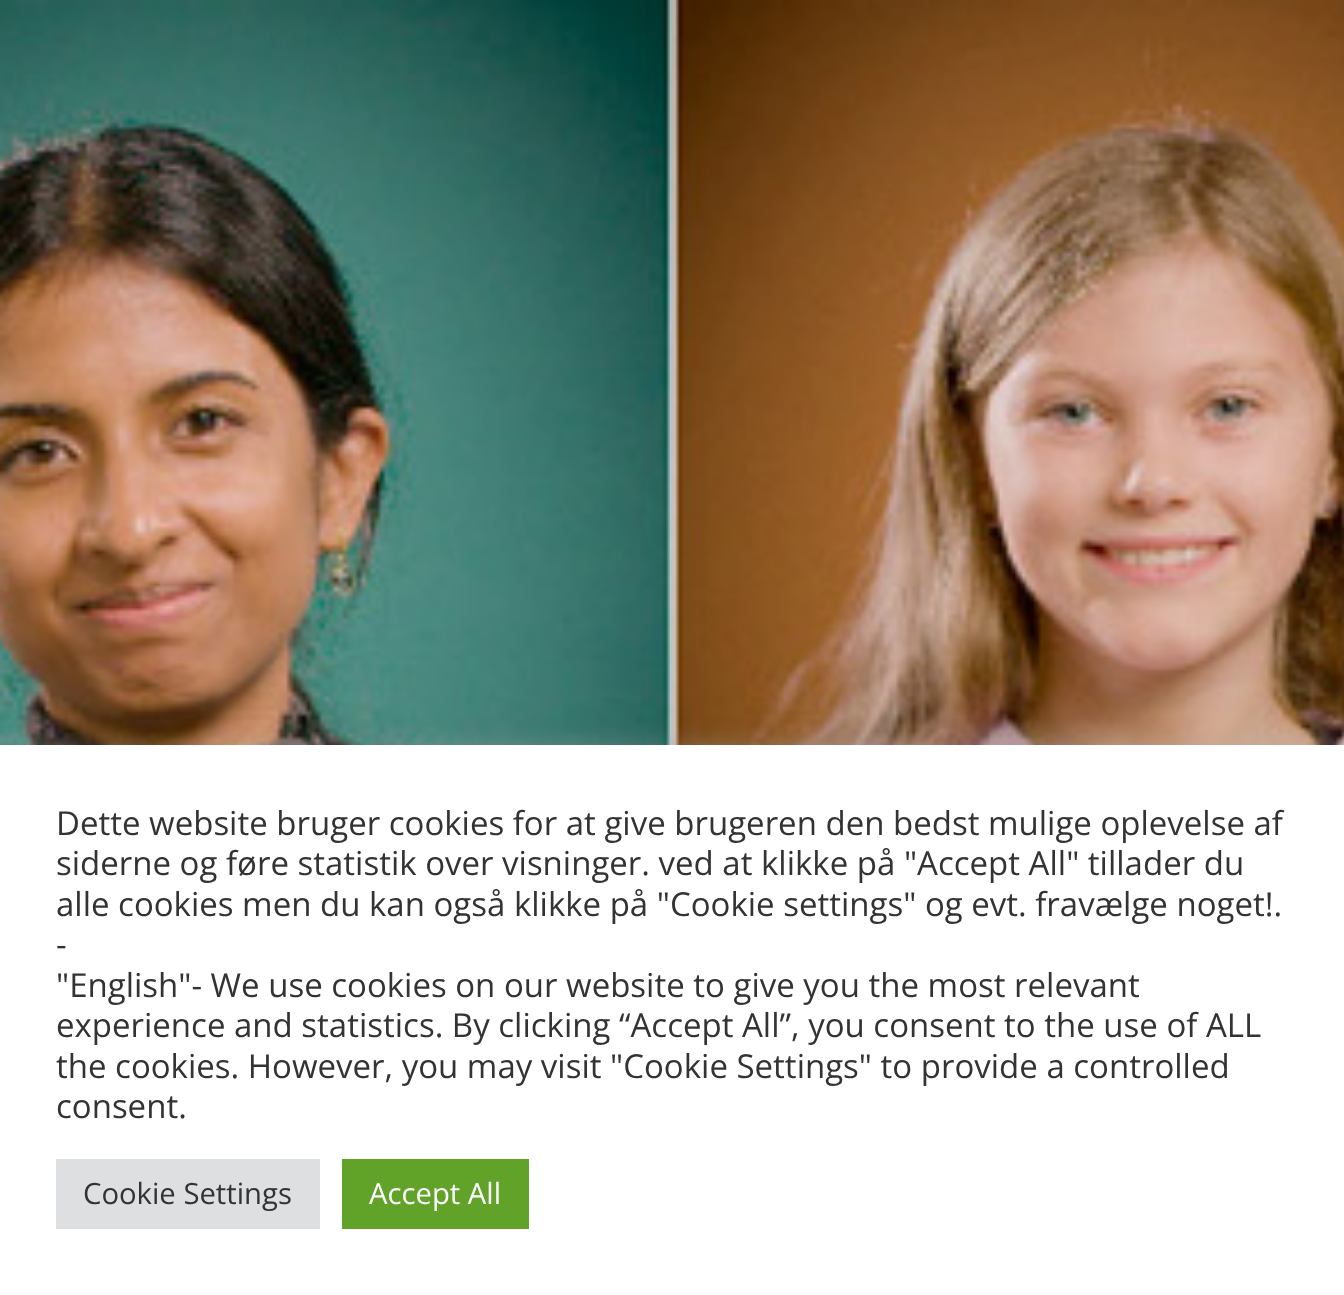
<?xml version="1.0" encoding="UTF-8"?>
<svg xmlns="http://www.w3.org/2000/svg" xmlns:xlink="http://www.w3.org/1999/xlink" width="1344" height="1295">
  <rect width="100%" height="100%" fill="#ffffff" />
  <image x="0" y="0" width="1344" height="745" xlink:href="image1.png" />
  <rect y="743" width="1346" height="551" fill="#acabab" fill-opacity="0.3" filter="blur(11px)" />
  <rect y="745" width="1344" height="550" fill="#ffffff" />
  <rect x="56" y="1159" width="264" height="70" fill="#dedfe0" />
  <rect x="342" y="1159" width="187" height="70" fill="#61a229" />
  <text x="56" y="835" style="font-family: Open Sans; font-size: 33px; fill: #333333">Dette website bruger cookies for at give brugeren den bedst mulige oplevelse af</text>
  <text x="56" y="875" style="font-family: Open Sans; font-size: 33px; fill: #333333">siderne og føre statistik over visninger. ved at klikke på "Accept All" tillader du</text>
  <text x="56" y="916" style="font-family: Open Sans; font-size: 33px; fill: #333333">alle cookies men du kan også klikke på "Cookie settings" og evt. fravælge noget!.</text>
  <text x="56" y="956" style="font-family: Open Sans; font-size: 33px; fill: #333333">-</text>
  <text x="56" y="997" style="font-family: Open Sans; font-size: 33px; fill: #333333">"English"- We use cookies on our website to give you the most relevant</text>
  <text x="56" y="1037" style="font-family: Open Sans; font-size: 33px; fill: #333333">experience and statistics. By clicking “Accept All”, you consent to the use of ALL</text>
  <text x="56" y="1078" style="font-family: Open Sans; font-size: 33px; fill: #333333">the cookies. However, you may visit "Cookie Settings" to provide a controlled</text>
  <text x="56" y="1118" style="font-family: Open Sans; font-size: 33px; fill: #333333">consent.</text>
  <text x="83" y="1204" style="font-family: Open Sans; font-size: 29.25px; fill: #333333">Cookie Settings</text>
  <text x="369" y="1204" style="font-family: Open Sans; font-size: 29.25px; fill: #ffffff">Accept All</text>
</svg>
